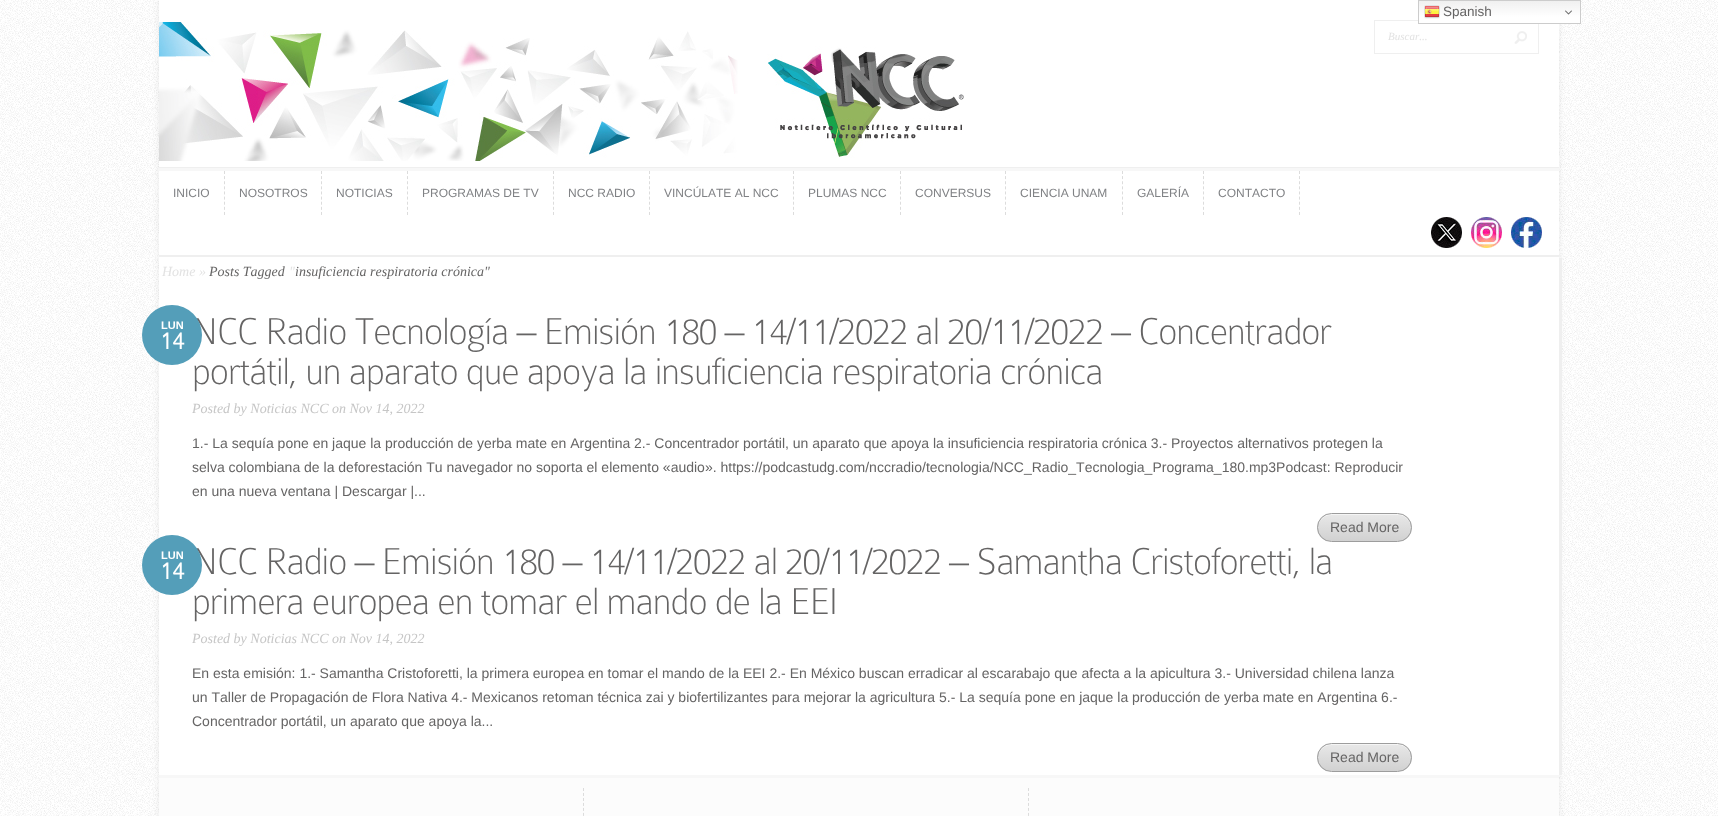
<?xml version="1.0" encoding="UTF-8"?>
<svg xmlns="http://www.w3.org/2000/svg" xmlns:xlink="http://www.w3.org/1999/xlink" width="1718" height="816">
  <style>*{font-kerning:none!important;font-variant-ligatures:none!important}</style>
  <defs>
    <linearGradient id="g1" gradientUnits="userSpaceOnUse" x1="1500" y1="0" x2="1500" y2="24"><stop offset="0" stop-color="#efefef" /><stop offset="0.7" stop-color="#ffffff" /></linearGradient>
    <clipPath id="clip1"><rect x="1317" y="513" width="95" height="29" rx="14.5" /></clipPath>
    <linearGradient id="g2" gradientUnits="userSpaceOnUse" x1="1365" y1="514" x2="1365" y2="541"><stop offset="0" stop-color="#e8e8e8" /><stop offset="1" stop-color="#d1d1d1" /></linearGradient>
    <clipPath id="clip2"><rect x="1317" y="743" width="95" height="29" rx="14.5" /></clipPath>
    <linearGradient id="g3" gradientUnits="userSpaceOnUse" x1="1365" y1="744" x2="1365" y2="771"><stop offset="0" stop-color="#e8e8e8" /><stop offset="1" stop-color="#d1d1d1" /></linearGradient>
  </defs>
  <rect width="100%" height="100%" fill="#ffffff" />
  <image x="0" y="0" width="1718" height="816" xlink:href="image1.png" />
  <rect x="159" width="1400" height="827" fill="#000000" fill-opacity="0.08" filter="blur(3.5px)" />
  <rect x="159" width="1400" height="255" fill="#ffffff" />
  <rect x="1374.5" y="20.5" width="164" height="33" fill="none" stroke="#efefef" />
  <rect x="1419" y="1" width="161" height="22" fill="url(#g1)" />
  <rect x="1418.5" y="0.5" width="162" height="23" fill="none" stroke="#cccccc" />
  <image x="1424" y="5" width="16" height="14" xlink:href="image2.png" />
  <image x="1565" y="10" width="7" height="5" xlink:href="image3.png" />
  <rect x="159" y="167" width="1400" height="1" fill="#efefef" />
  <image x="159" y="22" width="805" height="139" xlink:href="image4.png" />
  <image x="1514" y="31" width="13" height="13" xlink:href="image5.png" />
  <rect x="159" y="168" width="1400" height="3" fill="#f7f7f7" />
  <rect x="159" y="255" width="1400" height="2" fill="#efefef" />
  <path d="M 224.5 171 v 44" fill="none" stroke="#dcdcdc" stroke-dasharray="3 2.12" />
  <path d="M 321.5 171 v 44" fill="none" stroke="#dcdcdc" stroke-dasharray="3 2.12" />
  <path d="M 407.5 171 v 44" fill="none" stroke="#dcdcdc" stroke-dasharray="3 2.12" />
  <path d="M 553.5 171 v 44" fill="none" stroke="#dcdcdc" stroke-dasharray="3 2.12" />
  <path d="M 649.5 171 v 44" fill="none" stroke="#dcdcdc" stroke-dasharray="3 2.12" />
  <path d="M 793.5 171 v 44" fill="none" stroke="#dcdcdc" stroke-dasharray="3 2.12" />
  <path d="M 900.5 171 v 44" fill="none" stroke="#dcdcdc" stroke-dasharray="3 2.12" />
  <path d="M 1005.5 171 v 44" fill="none" stroke="#dcdcdc" stroke-dasharray="3 2.12" />
  <path d="M 1122.5 171 v 44" fill="none" stroke="#dcdcdc" stroke-dasharray="3 2.12" />
  <path d="M 1203.5 171 v 44" fill="none" stroke="#dcdcdc" stroke-dasharray="3 2.12" />
  <path d="M 1299.5 171 v 44" fill="none" stroke="#dcdcdc" stroke-dasharray="3 2.12" />
  <image x="1431" y="217" width="31" height="31" xlink:href="image6.png" />
  <image x="1471" y="217" width="31" height="31" xlink:href="image7.png" />
  <image x="1511" y="217" width="31" height="31" xlink:href="image8.png" />
  <rect x="159" y="257" width="1400" height="518" fill="#ffffff" />
  <g clip-path="url(#clip1)">
    <rect x="1317" y="514" width="95" height="27" fill="url(#g2)" />
  </g>
  <path d="M 1332 515 h 66 c 7 0 13 6 13 13 c 0 -8 -6 -14 -13 -14 h -66 c -8 0 -14 6 -14 14 c 0 -7 6 -13 14 -13 z" fill="#f5f5f5" />
  <rect x="1317.5" y="513.5" width="94" height="28" rx="14" fill="none" stroke="#9d9d9d" />
  <g clip-path="url(#clip2)">
    <rect x="1317" y="744" width="95" height="27" fill="url(#g3)" />
  </g>
  <path d="M 1332 745 h 66 c 7 0 13 6 13 13 c 0 -8 -6 -14 -13 -14 h -66 c -8 0 -14 6 -14 14 c 0 -7 6 -13 14 -13 z" fill="#f5f5f5" />
  <rect x="1317.5" y="743.5" width="94" height="28" rx="14" fill="none" stroke="#9d9d9d" />
  <rect x="1559" y="258" width="3" height="517" fill="#efefef" />
  <rect x="159" y="778" width="1400" height="38" fill="#fcfcfc" />
  <rect x="159" y="775" width="1400" height="3" fill="#f7f7f7" />
  <path d="M 583.5 788 v 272" fill="none" stroke="#dcdcdc" stroke-dasharray="3 1.98" />
  <path d="M 1028.5 788 v 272" fill="none" stroke="#dcdcdc" stroke-dasharray="3 1.98" />
  <text x="1443" y="16" style="font-family: Liberation Sans; font-size: 13.5px; fill: #656464">Spanish</text>
  <text x="1388" y="40" style="font-family: Liberation Serif; font-size: 11px; font-style: italic; fill: #e2e2e2">Buscar...</text>
  <text x="173" y="197" style="font-family: Liberation Sans; font-size: 12px; fill: #808285">INICIO</text>
  <text x="239" y="197" style="font-family: Liberation Sans; font-size: 12px; fill: #808285">NOSOTROS</text>
  <text x="336" y="197" style="font-family: Liberation Sans; font-size: 12px; fill: #808285">NOTICIAS</text>
  <text x="422" y="197" style="font-family: Liberation Sans; font-size: 12px; fill: #808285">PROGRAMAS DE TV</text>
  <text x="568" y="197" style="font-family: Liberation Sans; font-size: 12px; fill: #808285">NCC RADIO</text>
  <text x="664" y="197" style="font-family: Liberation Sans; font-size: 12px; fill: #808285">VINCÚLATE AL NCC</text>
  <text x="808" y="197" style="font-family: Liberation Sans; font-size: 12px; fill: #808285">PLUMAS NCC</text>
  <text x="915" y="197" style="font-family: Liberation Sans; font-size: 12px; fill: #808285">CONVERSUS</text>
  <text x="1020" y="197" style="font-family: Liberation Sans; font-size: 12px; fill: #808285">CIENCIA UNAM</text>
  <text x="1137" y="197" style="font-family: Liberation Sans; font-size: 12px; fill: #808285">GALERÍA</text>
  <text x="1218" y="197" style="font-family: Liberation Sans; font-size: 12px; fill: #808285">CONTACTO</text>
  <text x="162" y="276" style="font-family: Liberation Serif; font-size: 14px; font-style: italic; fill: #e2e2e2">Home »</text>
  <text x="209" y="276" style="font-family: Liberation Serif; font-size: 14px; font-style: italic; fill: #656464">Posts Tagged</text>
  <text x="289" y="276" style="font-family: Liberation Serif; font-size: 14px; font-style: italic; fill: #e2e2e2">"</text>
  <text x="295" y="276" style="font-family: Liberation Serif; font-size: 14px; font-style: italic; fill: #656464">insuficiencia respiratoria crónica"</text>
  <text x="192" y="344" style="font-family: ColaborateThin; font-size: 40px; font-weight: 100; letter-spacing: -1px; fill: #656464">NCC Radio Tecnología – Emisión 180 – 14/11/2022 al 20/11/2022 – Concentrador</text>
  <text x="192" y="384" style="font-family: ColaborateThin; font-size: 40px; font-weight: 100; letter-spacing: -1px; fill: #656464">portátil, un aparato que apoya la insuficiencia respiratoria crónica</text>
  <circle cx="172" cy="335" r="30" fill="#549eb9" />
  <text x="160" y="349" style="font-family: ColaborateThin; font-size: 26px; font-weight: bold; fill: #ffffff">14</text>
  <text x="161" y="329" style="font-family: Liberation Sans; font-size: 11px; font-weight: bold; fill: #ffffff">LUN</text>
  <text x="192" y="413" style="font-family: Liberation Serif; font-size: 14px; font-style: italic; fill: #c6c6c6">Posted by Noticias NCC on Nov 14, 2022</text>
  <text x="192" y="448" style="font-family: Liberation Sans; font-size: 14px; fill: #656464">1.- La sequía pone en jaque la producción de yerba mate en Argentina 2.- Concentrador portátil, un aparato que apoya la insuficiencia respiratoria crónica 3.- Proyectos alternativos protegen la</text>
  <text x="192" y="472" style="font-family: Liberation Sans; font-size: 14px; fill: #656464">selva colombiana de la deforestación  Tu navegador no soporta el elemento «audio». https://podcastudg.com/nccradio/tecnologia/NCC_Radio_Tecnologia_Programa_180.mp3Podcast: Reproducir</text>
  <text x="192" y="496" style="font-family: Liberation Sans; font-size: 14px; fill: #656464">en una nueva ventana | Descargar |...</text>
  <text x="1330" y="532" style="font-family: Liberation Sans; font-size: 14px; fill: #656464">Read More</text>
  <text x="192" y="574" style="font-family: ColaborateThin; font-size: 40px; font-weight: 100; letter-spacing: -1px; fill: #656464">NCC Radio – Emisión 180 – 14/11/2022 al 20/11/2022 – Samantha Cristoforetti, la</text>
  <text x="192" y="614" style="font-family: ColaborateThin; font-size: 40px; font-weight: 100; letter-spacing: -1px; fill: #656464">primera europea en tomar el mando de la EEI</text>
  <circle cx="172" cy="565" r="30" fill="#549eb9" />
  <text x="160" y="579" style="font-family: ColaborateThin; font-size: 26px; font-weight: bold; fill: #ffffff">14</text>
  <text x="161" y="559" style="font-family: Liberation Sans; font-size: 11px; font-weight: bold; fill: #ffffff">LUN</text>
  <text x="192" y="643" style="font-family: Liberation Serif; font-size: 14px; font-style: italic; fill: #c6c6c6">Posted by Noticias NCC on Nov 14, 2022</text>
  <text x="192" y="678" style="font-family: Liberation Sans; font-size: 14px; fill: #656464">En esta emisión: 1.- Samantha Cristoforetti, la primera europea en tomar el mando de la EEI 2.- En México buscan erradicar al escarabajo que afecta a la apicultura 3.- Universidad chilena lanza</text>
  <text x="192" y="702" style="font-family: Liberation Sans; font-size: 14px; fill: #656464">un Taller de Propagación de Flora Nativa 4.- Mexicanos retoman técnica zai y biofertilizantes para mejorar la agricultura 5.- La sequía pone en jaque la producción de yerba mate en Argentina 6.-</text>
  <text x="192" y="726" style="font-family: Liberation Sans; font-size: 14px; fill: #656464">Concentrador portátil, un aparato que apoya la...</text>
  <text x="1330" y="762" style="font-family: Liberation Sans; font-size: 14px; fill: #656464">Read More</text>
</svg>
